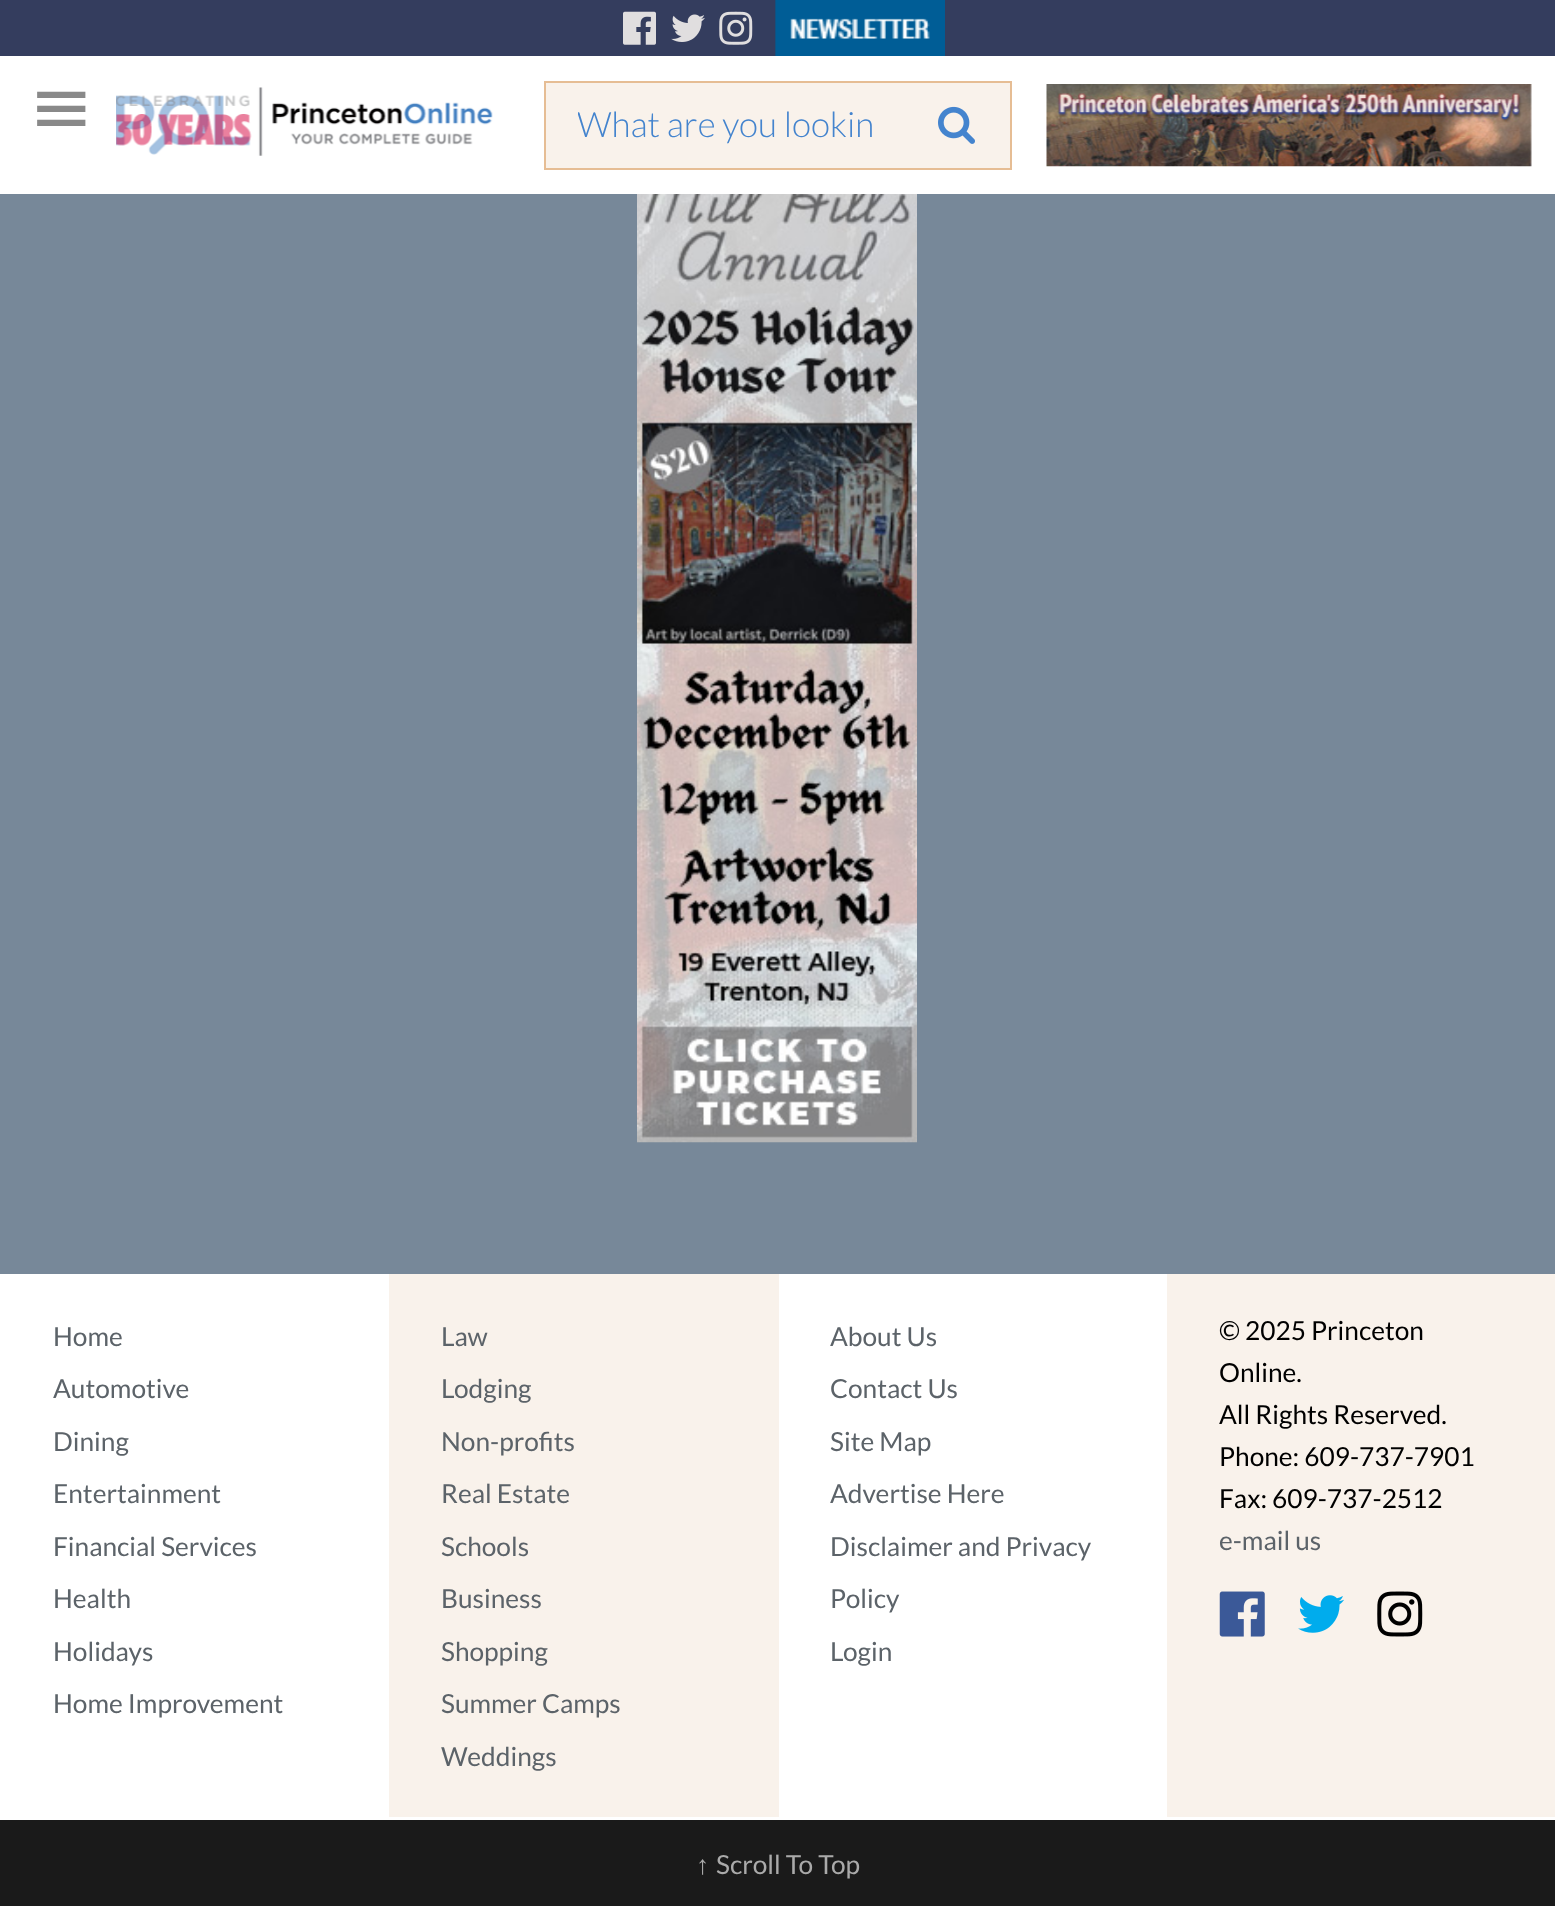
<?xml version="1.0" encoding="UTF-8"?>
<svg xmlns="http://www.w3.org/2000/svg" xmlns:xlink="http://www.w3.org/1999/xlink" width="1555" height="1906">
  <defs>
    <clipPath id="clip1"><rect x="578" y="102" width="302" height="42" /></clipPath>
  </defs>
  <rect width="100%" height="100%" fill="#ffffff" />
  <rect width="1555" height="56" fill="#343d5e" />
  <image x="623" y="11" width="33" height="34" xlink:href="image1.png" />
  <image x="671" y="14" width="34" height="28" xlink:href="image2.png" />
  <image x="719" y="11" width="34" height="34" xlink:href="image3.png" />
  <image x="775" y="0" width="170" height="56" xlink:href="image4.png" />
  <image x="116" y="87" width="377" height="69" xlink:href="image5.png" />
  <rect x="545" y="82" width="466" height="87" fill="#f9f2eb" stroke="#e6bd94" stroke-width="2" />
  <image x="938" y="106" width="37" height="38" xlink:href="image6.png" />
  <image x="1046" y="84" width="486" height="83" xlink:href="image7.png" />
  <rect y="194" width="1555" height="1080" fill="#778899" />
  <image x="637" y="194" width="280" height="949" xlink:href="image8.png" />
  <rect x="389" y="1274" width="390" height="543" fill="#f9f2eb" />
  <rect x="1167" y="1274" width="388" height="543" fill="#f9f2eb" />
  <image x="1219" y="1591" width="46" height="46" xlink:href="image9.png" />
  <image x="1298" y="1595" width="46" height="38" xlink:href="image10.png" />
  <image x="1377" y="1591" width="46" height="46" xlink:href="image11.png" />
  <rect y="1820" width="1555" height="86" fill="#1a1a1a" />
  <text x="29" y="133" style="font-family: DejaVu Sans; font-size: 77px; fill: #898989">≡</text>
  <g clip-path="url(#clip1)">
    <text x="577" y="137" style="font-family: Lato; font-size: 35px; font-weight: 300; fill: #4484ce">What are you lookin</text>
  </g>
  <text x="53" y="1346" style="font-family: Lato; font-size: 26.25px; fill: #5c6369">Home</text>
  <text x="53" y="1398" style="font-family: Lato; font-size: 26.25px; fill: #5c6369">Automotive</text>
  <text x="53" y="1451" style="font-family: Lato; font-size: 26.25px; fill: #5c6369">Dining</text>
  <text x="53" y="1503" style="font-family: Lato; font-size: 26.25px; fill: #5c6369">Entertainment</text>
  <text x="53" y="1556" style="font-family: Lato; font-size: 26.25px; fill: #5c6369">Financial Services</text>
  <text x="53" y="1608" style="font-family: Lato; font-size: 26.25px; fill: #5c6369">Health</text>
  <text x="53" y="1661" style="font-family: Lato; font-size: 26.25px; fill: #5c6369">Holidays</text>
  <text x="53" y="1713" style="font-family: Lato; font-size: 26.25px; fill: #5c6369">Home Improvement</text>
  <text x="441" y="1346" style="font-family: Lato; font-size: 26.25px; fill: #5c6369">Law</text>
  <text x="441" y="1398" style="font-family: Lato; font-size: 26.25px; fill: #5c6369">Lodging</text>
  <text x="441" y="1451" style="font-family: Lato; font-size: 26.25px; fill: #5c6369">Non-profits</text>
  <text x="441" y="1503" style="font-family: Lato; font-size: 26.25px; fill: #5c6369">Real Estate</text>
  <text x="441" y="1556" style="font-family: Lato; font-size: 26.25px; fill: #5c6369">Schools</text>
  <text x="441" y="1608" style="font-family: Lato; font-size: 26.25px; fill: #5c6369">Business</text>
  <text x="441" y="1661" style="font-family: Lato; font-size: 26.25px; fill: #5c6369">Shopping</text>
  <text x="441" y="1713" style="font-family: Lato; font-size: 26.25px; fill: #5c6369">Summer Camps</text>
  <text x="441" y="1766" style="font-family: Lato; font-size: 26.25px; fill: #5c6369">Weddings</text>
  <text x="830" y="1346" style="font-family: Lato; font-size: 26.25px; fill: #5c6369">About Us</text>
  <text x="830" y="1398" style="font-family: Lato; font-size: 26.25px; fill: #5c6369">Contact Us</text>
  <text x="830" y="1451" style="font-family: Lato; font-size: 26.25px; fill: #5c6369">Site Map</text>
  <text x="830" y="1503" style="font-family: Lato; font-size: 26.25px; fill: #5c6369">Advertise Here</text>
  <text x="830" y="1556" style="font-family: Lato; font-size: 26.25px; fill: #5c6369">Disclaimer and Privacy</text>
  <text x="830" y="1608" style="font-family: Lato; font-size: 26.25px; fill: #5c6369">Policy</text>
  <text x="830" y="1661" style="font-family: Lato; font-size: 26.25px; fill: #5c6369">Login</text>
  <text x="1219" y="1340" style="font-family: Lato; font-size: 26.25px; fill: #000000">© 2025 Princeton</text>
  <text x="1219" y="1382" style="font-family: Lato; font-size: 26.25px; fill: #000000">Online.</text>
  <text x="1219" y="1424" style="font-family: Lato; font-size: 26.25px; fill: #000000">All Rights Reserved.</text>
  <text x="1219" y="1466" style="font-family: Lato; font-size: 26.25px; fill: #000000">Phone: 609-737-7901</text>
  <text x="1219" y="1508" style="font-family: Lato; font-size: 26.25px; fill: #000000">Fax: 609-737-2512</text>
  <text x="1219" y="1550" style="font-family: Lato; font-size: 26.25px; fill: #5c6369">e-mail us</text>
  <text x="696" y="1874" style="font-family: Liberation Sans; font-size: 26.25px; font-style: italic; fill: #aaaaaa">↑</text>
  <text x="716" y="1874" style="font-family: Lato; font-size: 26.25px; fill: #aaaaaa">Scroll To Top</text>
</svg>
